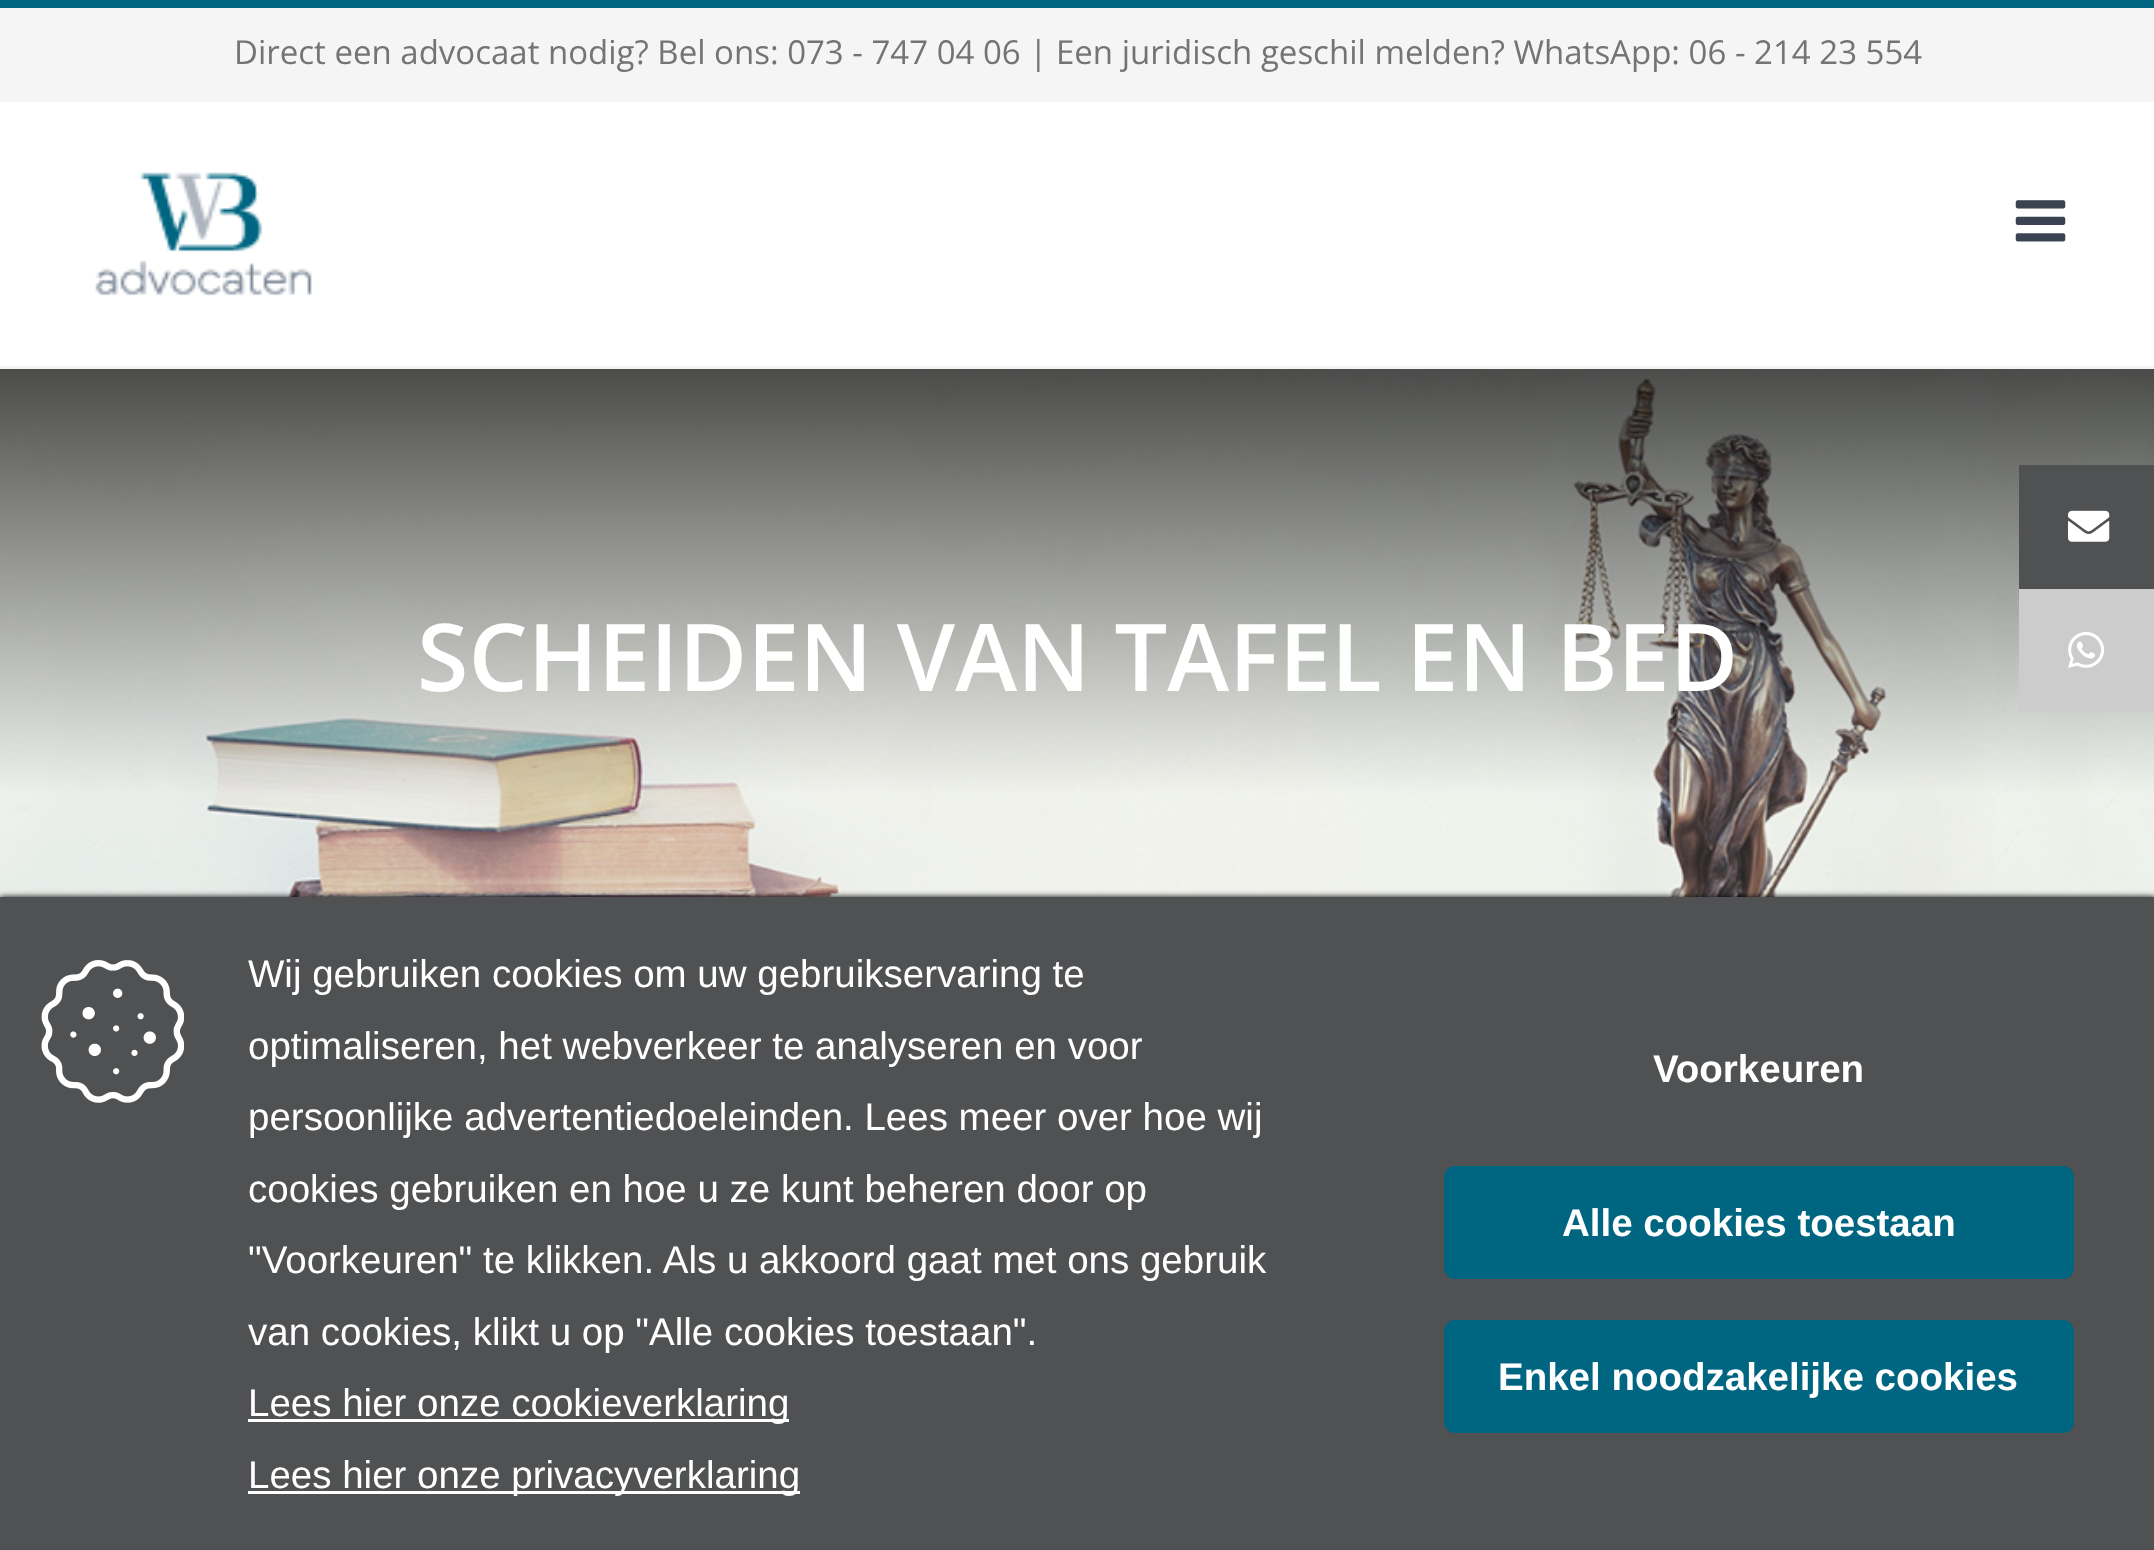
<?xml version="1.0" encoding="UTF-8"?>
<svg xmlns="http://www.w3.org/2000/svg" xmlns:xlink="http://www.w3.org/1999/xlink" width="2154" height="1550">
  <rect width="100%" height="100%" fill="#f5f5f5" />
  <rect width="2154" height="8" fill="#006581" />
  <rect y="102" width="2154" height="264" fill="#ffffff" />
  <image x="95" y="172" width="217" height="124" xlink:href="image1.png" />
  <image x="2015" y="200" width="51" height="42" xlink:href="image2.png" />
  <image x="0" y="369" width="2154" height="528" xlink:href="image3.png" />
  <rect x="2019" y="465" width="135" height="124" fill="#505152" />
  <image x="2068" y="510" width="42" height="32" xlink:href="image4.png" />
  <rect x="2019" y="589" width="135" height="123" fill="#cccccc" />
  <image x="2068" y="632" width="36" height="36" xlink:href="image5.png" />
  <rect y="897" width="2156" height="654" fill="#000000" filter="blur(3px)" />
  <rect y="897" width="2154" height="653" fill="#505152" />
  <image x="41" y="960" width="143" height="143" xlink:href="image6.png" />
  <rect x="248" y="1419" width="541" height="3" fill="#ffffff" />
  <rect x="248" y="1491" width="552" height="3" fill="#ffffff" />
  <rect x="1444" y="1166" width="630" height="113" rx="11" fill="#006581" />
  <rect x="1444" y="1320" width="630" height="113" rx="11" fill="#006581" />
  <text x="234" y="64" style="font-family: Open Sans; font-size: 33px; fill: #747474">Direct een advocaat nodig? Bel ons: 073 - 747 04 06 | Een juridisch geschil melden? WhatsApp: 06 - 214 23 554</text>
  <text x="417" y="691" style="font-family: Open Sans; font-size: 93.5px; font-weight: 600; fill: #ffffff">SCHEIDEN VAN TAFEL EN BED</text>
  <text x="248" y="987" style="font-family: Liberation Sans; font-size: 38.5px; fill: #ffffff">Wij gebruiken cookies om uw gebruikservaring te</text>
  <text x="248" y="1059" style="font-family: Liberation Sans; font-size: 38.5px; fill: #ffffff">optimaliseren, het webverkeer te analyseren en voor</text>
  <text x="248" y="1130" style="font-family: Liberation Sans; font-size: 38.5px; fill: #ffffff">persoonlijke advertentiedoeleinden. Lees meer over hoe wij</text>
  <text x="248" y="1202" style="font-family: Liberation Sans; font-size: 38.5px; fill: #ffffff">cookies gebruiken en hoe u ze kunt beheren door op</text>
  <text x="248" y="1273" style="font-family: Liberation Sans; font-size: 38.5px; fill: #ffffff">"Voorkeuren" te klikken. Als u akkoord gaat met ons gebruik</text>
  <text x="248" y="1345" style="font-family: Liberation Sans; font-size: 38.5px; fill: #ffffff">van cookies, klikt u op "Alle cookies toestaan".</text>
  <text x="248" y="1416" style="font-family: Liberation Sans; font-size: 38.5px; fill: #ffffff">Lees hier onze cookieverklaring</text>
  <text x="248" y="1488" style="font-family: Liberation Sans; font-size: 38.5px; fill: #ffffff">Lees hier onze privacyverklaring</text>
  <text x="1653" y="1082" style="font-family: Liberation Sans; font-size: 38.5px; font-weight: bold; fill: #ffffff">Voorkeuren</text>
  <text x="1562" y="1236" style="font-family: Liberation Sans; font-size: 38.5px; font-weight: bold; fill: #ffffff">Alle cookies toestaan</text>
  <text x="1498" y="1390" style="font-family: Liberation Sans; font-size: 38.5px; font-weight: bold; fill: #ffffff">Enkel noodzakelijke cookies</text>
</svg>
